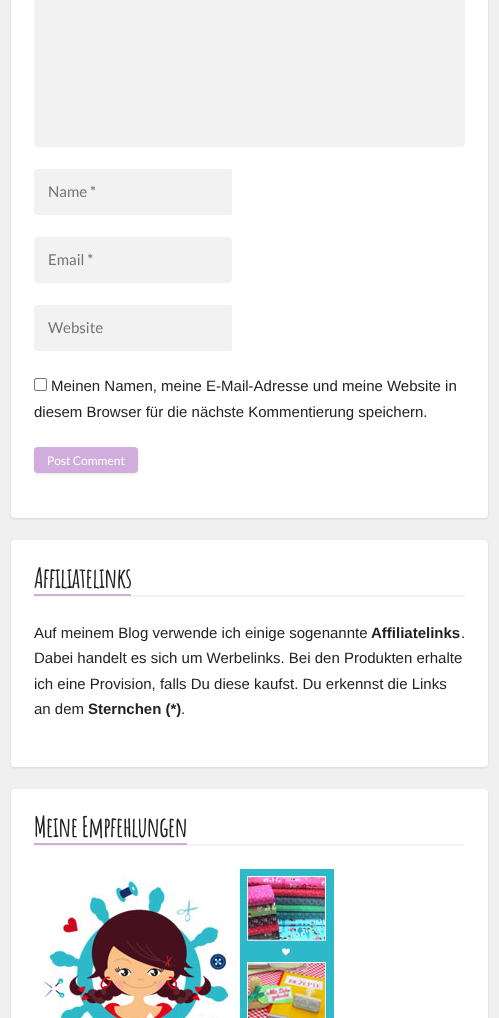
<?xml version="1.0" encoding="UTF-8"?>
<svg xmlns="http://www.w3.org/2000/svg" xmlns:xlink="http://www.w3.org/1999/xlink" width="499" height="1018">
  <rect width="100%" height="100%" fill="#f0f0f0" />
  <rect x="11" y="-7" width="477" height="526" rx="4" fill="#000000" fill-opacity="0.1" filter="blur(1px)" />
  <rect x="11" y="-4" width="477" height="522" rx="4" fill="#ffffff" />
  <rect x="34" y="-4" width="431" height="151" rx="4" fill="#f2f2f2" />
  <rect x="34" y="169" width="198" height="46" rx="4" fill="#f2f2f2" />
  <rect x="34" y="237" width="198" height="46" rx="4" fill="#f2f2f2" />
  <rect x="34" y="305" width="198" height="46" rx="4" fill="#f2f2f2" />
  <rect x="34.5" y="378.5" width="12" height="12" rx="1.5" fill="none" stroke="#767676" />
  <rect x="34" y="448" width="104" height="26" rx="4" fill="#000000" fill-opacity="0.1" filter="blur(1px)" />
  <rect x="34" y="447" width="104" height="26" rx="4" fill="#d0addd" />
  <rect x="11" y="541" width="477" height="227" rx="4" fill="#000000" fill-opacity="0.1" filter="blur(1px)" />
  <rect x="11" y="540" width="477" height="227" rx="4" fill="#ffffff" />
  <rect x="34" y="595" width="431" height="2" fill="#f2f2f2" />
  <rect x="34" y="594" width="97" height="2" fill="#d0addd" />
  <rect x="11" y="790" width="477" height="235" rx="4" fill="#000000" fill-opacity="0.1" filter="blur(1px)" />
  <rect x="11" y="789" width="477" height="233" rx="4" fill="#ffffff" />
  <rect x="34" y="844" width="431" height="2" fill="#f2f2f2" />
  <rect x="34" y="843" width="153" height="2" fill="#d0addd" />
  <image x="42" y="869" width="292" height="149" xlink:href="image1.png" />
  <text x="48" y="197" style="font-family: Lato; font-size: 15px; fill: #757575">Name *</text>
  <text x="48" y="265" style="font-family: Lato; font-size: 15px; fill: #757575">Email *</text>
  <text x="48" y="333" style="font-family: Lato; font-size: 15px; fill: #757575">Website</text>
  <text x="51" y="391" style="font-family: Liberation Sans; font-size: 15px; fill: #222222">Meinen Namen, meine E-Mail-Adresse und meine Website in</text>
  <text x="34" y="417" style="font-family: Liberation Sans; font-size: 15px; fill: #222222">diesem Browser für die nächste Kommentierung speichern.</text>
  <text x="47" y="465" style="font-family: Lato; font-size: 12px; fill: #ffffff">Post Comment</text>
  <text x="34" y="588" style="font-family: Amatic SC; font-size: 28px; font-weight: bold; letter-spacing: -1px; fill: #222222">Affiliatelinks</text>
  <text x="34" y="638" style="font-family: Liberation Sans; font-size: 15px; fill: #222222">Auf meinem Blog verwende ich einige sogenannte</text>
  <text x="371" y="638" style="font-family: Liberation Sans; font-size: 15px; font-weight: bold; fill: #222222">Affiliatelinks</text>
  <text x="461" y="638" style="font-family: Liberation Sans; font-size: 15px; fill: #222222">.</text>
  <text x="34" y="663" style="font-family: Liberation Sans; font-size: 15px; fill: #222222">Dabei handelt es sich um Werbelinks. Bei den Produkten erhalte</text>
  <text x="34" y="689" style="font-family: Liberation Sans; font-size: 15px; fill: #222222">ich eine Provision, falls Du diese kaufst. Du erkennst die Links</text>
  <text x="34" y="714" style="font-family: Liberation Sans; font-size: 15px; fill: #222222">an dem</text>
  <text x="88" y="714" style="font-family: Liberation Sans; font-size: 15px; font-weight: bold; fill: #222222">Sternchen (*)</text>
  <text x="181" y="714" style="font-family: Liberation Sans; font-size: 15px; fill: #222222">.</text>
  <text x="34" y="837" style="font-family: Amatic SC; font-size: 28px; font-weight: bold; letter-spacing: -1px; fill: #222222">Meine Empfehlungen</text>
</svg>
